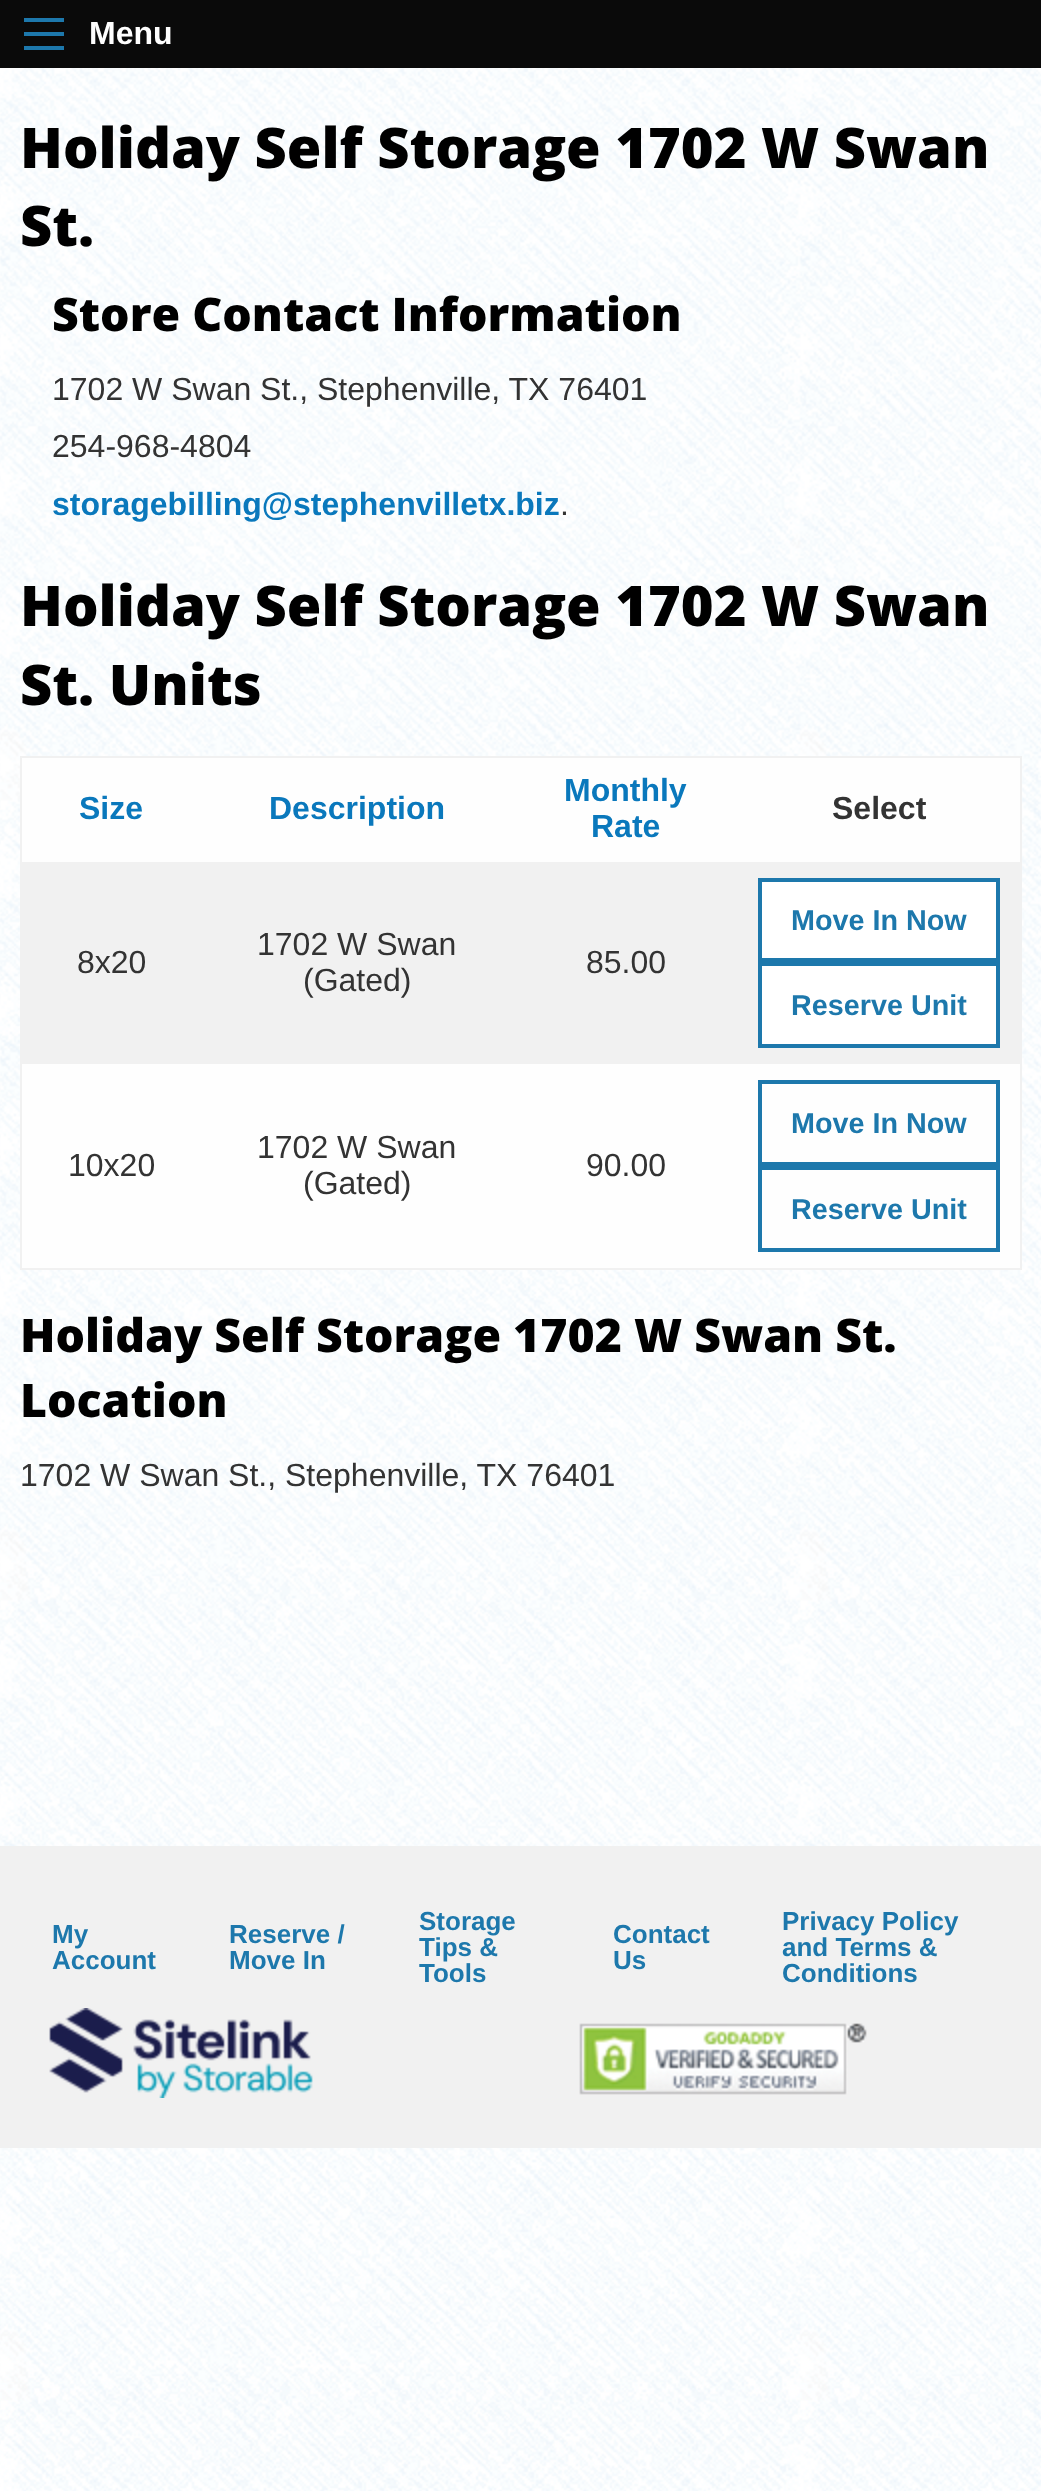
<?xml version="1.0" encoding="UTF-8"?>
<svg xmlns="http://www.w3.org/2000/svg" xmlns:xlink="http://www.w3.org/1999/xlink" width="1041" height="2491">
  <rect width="100%" height="100%" fill="#ffffff" />
  <image x="0" y="68" width="1041" height="2423" xlink:href="image1.png" />
  <rect width="1041" height="68" fill="#0a0a0a" />
  <rect x="24" y="46" width="40" height="4" fill="#1d78ac" />
  <rect x="24" y="32" width="40" height="4" fill="#1d78ac" />
  <rect x="24" y="18" width="40" height="4" fill="#1d78ac" />
  <rect x="22" y="758" width="998" height="510" fill="#fefefe" />
  <rect x="20" y="756" width="1002" height="2" fill="#f1f1f1" />
  <rect x="1020" y="756" width="2" height="514" fill="#f1f1f1" />
  <rect x="20" y="1268" width="1002" height="2" fill="#f1f1f1" />
  <rect x="20" y="756" width="2" height="514" fill="#f1f1f1" />
  <rect x="22" y="862" width="998" height="202" fill="#f1f1f1" />
  <rect x="760" y="880" width="238" height="80" fill="#ffffff" stroke="#1d78ac" stroke-width="4" />
  <rect x="760" y="964" width="238" height="82" fill="#ffffff" stroke="#1d78ac" stroke-width="4" />
  <rect x="760" y="1082" width="238" height="82" fill="none" stroke="#1d78ac" stroke-width="4" />
  <rect x="760" y="1168" width="238" height="82" fill="none" stroke="#1d78ac" stroke-width="4" />
  <rect y="1846" width="1041" height="302" fill="#f1f1f1" />
  <image x="49" y="2008" width="264" height="90" xlink:href="image2.png" />
  <image x="579" y="2023" width="288" height="72" xlink:href="image3.png" />
  <text x="89" y="44" style="font-family: Liberation Sans; font-size: 32px; font-weight: bold; fill: #fefefe">Menu</text>
  <text x="20" y="168" style="font-family: Open Sans; font-size: 56px; font-weight: 800; fill: #000000">Holiday Self Storage 1702 W Swan</text>
  <text x="20" y="246" style="font-family: Open Sans; font-size: 56px; font-weight: 800; fill: #000000">St.</text>
  <text x="52" y="331" style="font-family: Open Sans; font-size: 46.4px; font-weight: 800; fill: #000000">Store Contact Information</text>
  <text x="52" y="400" style="font-family: Liberation Sans; font-size: 32px; fill: #333333">1702 W Swan St., Stephenville, TX 76401</text>
  <text x="52" y="457" style="font-family: Liberation Sans; font-size: 32px; fill: #333333">254-968-4804</text>
  <text x="52" y="515" style="font-family: Liberation Sans; font-size: 32px; font-weight: bold; fill: #0a78bc">storagebilling@stephenvilletx.biz</text>
  <text x="560" y="515" style="font-family: Liberation Sans; font-size: 32px; fill: #333333">.</text>
  <text x="20" y="626" style="font-family: Open Sans; font-size: 56px; font-weight: 800; fill: #000000">Holiday Self Storage 1702 W Swan</text>
  <text x="20" y="705" style="font-family: Open Sans; font-size: 56px; font-weight: 800; fill: #000000">St. Units</text>
  <text x="79" y="819" style="font-family: Liberation Sans; font-size: 32px; font-weight: bold; fill: #0a78bc">Size</text>
  <text x="269" y="819" style="font-family: Liberation Sans; font-size: 32px; font-weight: bold; fill: #0a78bc">Description</text>
  <text x="564" y="801" style="font-family: Liberation Sans; font-size: 32px; font-weight: bold; fill: #0a78bc">Monthly</text>
  <text x="591" y="837" style="font-family: Liberation Sans; font-size: 32px; font-weight: bold; fill: #0a78bc">Rate</text>
  <text x="832" y="819" style="font-family: Liberation Sans; font-size: 32px; font-weight: bold; fill: #333333">Select</text>
  <text x="77" y="973" style="font-family: Liberation Sans; font-size: 32px; fill: #333333">8x20</text>
  <text x="257" y="955" style="font-family: Liberation Sans; font-size: 32px; fill: #333333">1702 W Swan</text>
  <text x="303" y="991" style="font-family: Liberation Sans; font-size: 32px; fill: #333333">(Gated)</text>
  <text x="586" y="973" style="font-family: Liberation Sans; font-size: 32px; fill: #333333">85.00</text>
  <text x="791" y="930" style="font-family: Liberation Sans; font-size: 28.75px; font-weight: bold; fill: #1d78ac">Move In Now</text>
  <text x="791" y="1015" style="font-family: Liberation Sans; font-size: 28.75px; font-weight: bold; fill: #1d78ac">Reserve Unit</text>
  <text x="68" y="1176" style="font-family: Liberation Sans; font-size: 32px; fill: #333333">10x20</text>
  <text x="257" y="1158" style="font-family: Liberation Sans; font-size: 32px; fill: #333333">1702 W Swan</text>
  <text x="303" y="1194" style="font-family: Liberation Sans; font-size: 32px; fill: #333333">(Gated)</text>
  <text x="586" y="1176" style="font-family: Liberation Sans; font-size: 32px; fill: #333333">90.00</text>
  <text x="791" y="1133" style="font-family: Liberation Sans; font-size: 28.75px; font-weight: bold; fill: #1d78ac">Move In Now</text>
  <text x="791" y="1219" style="font-family: Liberation Sans; font-size: 28.75px; font-weight: bold; fill: #1d78ac">Reserve Unit</text>
  <text x="20" y="1352" style="font-family: Open Sans; font-size: 46.4px; font-weight: 800; fill: #000000">Holiday Self Storage 1702 W Swan St.</text>
  <text x="20" y="1417" style="font-family: Open Sans; font-size: 46.4px; font-weight: 800; fill: #000000">Location</text>
  <text x="20" y="1486" style="font-family: Liberation Sans; font-size: 32px; fill: #333333">1702 W Swan St., Stephenville, TX 76401</text>
  <text x="52" y="1943" style="font-family: Liberation Sans; font-size: 26px; font-weight: bold; fill: #1d78ac">My</text>
  <text x="52" y="1969" style="font-family: Liberation Sans; font-size: 26px; font-weight: bold; fill: #1d78ac">Account</text>
  <text x="229" y="1943" style="font-family: Liberation Sans; font-size: 26px; font-weight: bold; fill: #1d78ac">Reserve /</text>
  <text x="229" y="1969" style="font-family: Liberation Sans; font-size: 26px; font-weight: bold; fill: #1d78ac">Move In</text>
  <text x="419" y="1930" style="font-family: Liberation Sans; font-size: 26px; font-weight: bold; fill: #1d78ac">Storage</text>
  <text x="419" y="1956" style="font-family: Liberation Sans; font-size: 26px; font-weight: bold; fill: #1d78ac">Tips &amp;</text>
  <text x="419" y="1982" style="font-family: Liberation Sans; font-size: 26px; font-weight: bold; fill: #1d78ac">Tools</text>
  <text x="613" y="1943" style="font-family: Liberation Sans; font-size: 26px; font-weight: bold; fill: #1d78ac">Contact</text>
  <text x="613" y="1969" style="font-family: Liberation Sans; font-size: 26px; font-weight: bold; fill: #1d78ac">Us</text>
  <text x="782" y="1930" style="font-family: Liberation Sans; font-size: 26px; font-weight: bold; fill: #1d78ac">Privacy Policy</text>
  <text x="782" y="1956" style="font-family: Liberation Sans; font-size: 26px; font-weight: bold; fill: #1d78ac">and Terms &amp;</text>
  <text x="782" y="1982" style="font-family: Liberation Sans; font-size: 26px; font-weight: bold; fill: #1d78ac">Conditions</text>
</svg>
